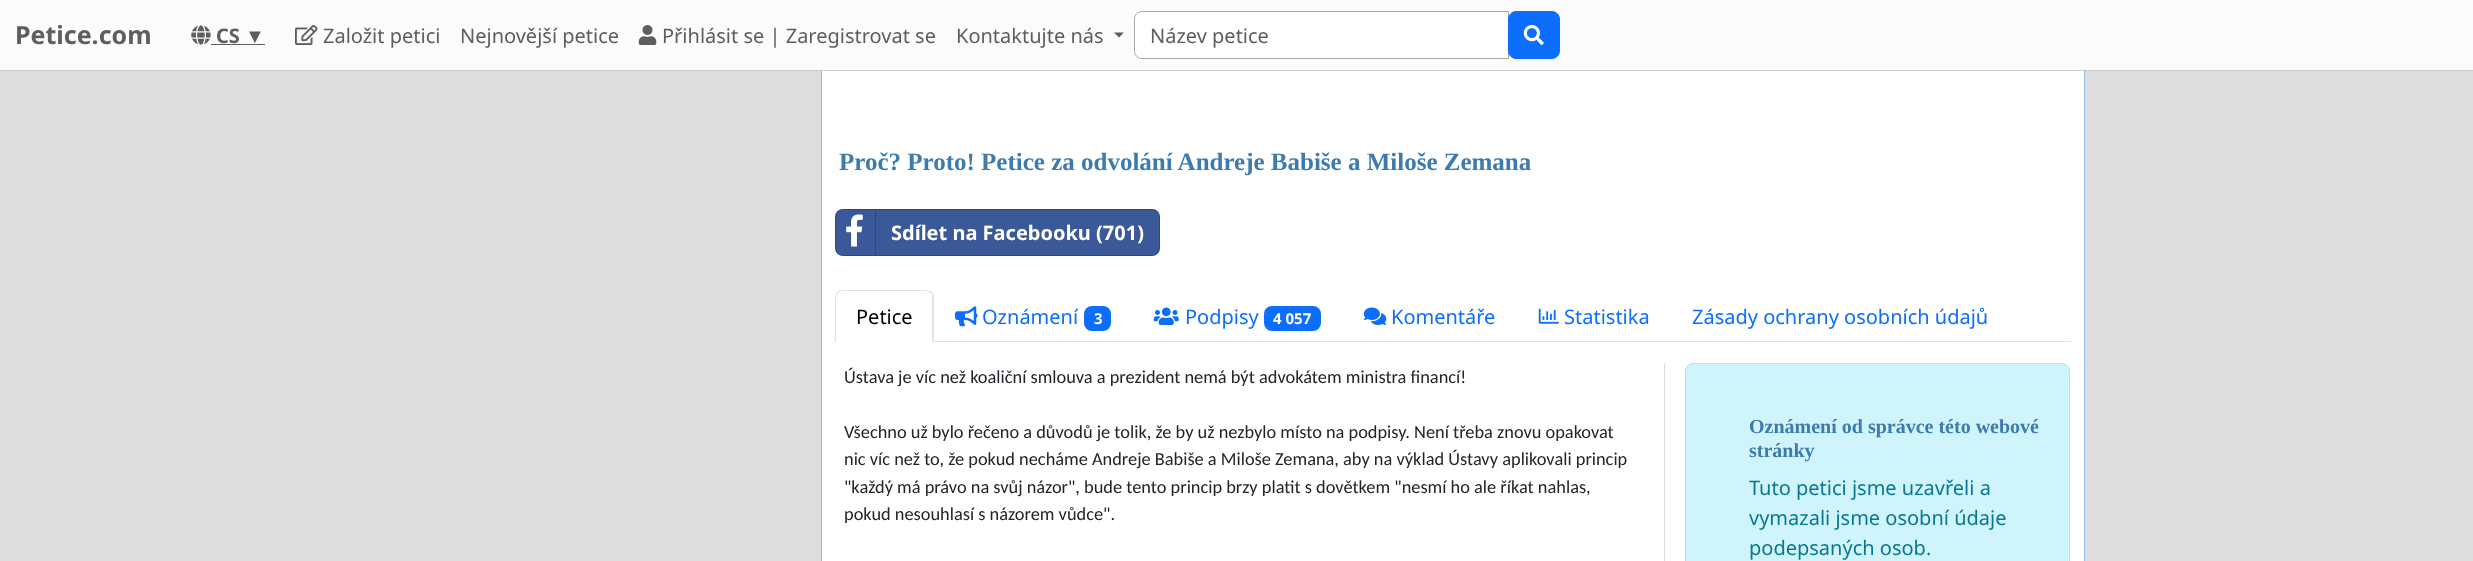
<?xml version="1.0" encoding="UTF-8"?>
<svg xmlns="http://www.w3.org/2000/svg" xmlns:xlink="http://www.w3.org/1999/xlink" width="2473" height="561">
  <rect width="100%" height="100%" fill="#dddddd" />
  <rect width="2473" height="70" fill="#fbfbfb" />
  <rect y="70" width="2473" height="1" fill="#cccccc" />
  <image x="191" y="25" width="20" height="20" xlink:href="image1.png" />
  <rect x="211" y="44" width="54" height="1" fill="#5e5e5e" />
  <image x="295" y="25" width="23" height="20" xlink:href="image2.png" />
  <image x="638" y="25" width="19" height="20" xlink:href="image3.png" />
  <path d="M 1114 32.5 h 10 l -5 5 z" fill="#5e5e5e" />
  <path d="M 1141 13 h 367 v 45 h -367 c -3.5 0 -6 -2.5 -6 -6 v -33 c 0 -3.5 2.5 -6 6 -6 z" fill="#ffffff" />
  <path d="M 1142 11.5 h 366.5 v 47 h -366.5 c -4 0 -7.5 -3.5 -7.5 -7.5 v -32 c 0 -4 3.5 -7.5 7.5 -7.5 z" fill="none" stroke="#a9a9a9" />
  <rect x="1508.5" y="11.5" width="51" height="47" rx="7.5" fill="#0d6efd" stroke="#0d6efd" />
  <image x="1523" y="25" width="21" height="20" xlink:href="image4.png" />
  <rect x="822" y="71" width="1262" height="490" fill="#ffffff" />
  <path d="M 821 71 h 1264 v 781 c 0 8 -6 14 -14 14 h -1236 c -8 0 -14 -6 -14 -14 z m 1 0 h 1262 v 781 c 0 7 -6 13 -13 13 h -1236 c -7 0 -13 -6 -13 -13 z" fill="#95bce2" fill-rule="evenodd" />
  <rect x="835" y="209" width="325" height="47" rx="8" fill="#3b5998" />
  <rect x="835.5" y="209.5" width="324" height="46" rx="7.5" fill="none" stroke="#000000" stroke-opacity="0.2" />
  <rect x="875" y="210" width="1" height="45" fill="#2f477a" />
  <image x="846" y="214" width="17" height="33" xlink:href="image5.png" />
  <rect x="934" y="341" width="1137" height="1" fill="#dee2e6" />
  <path d="M 842 290 c -2 0 -4 1 -5 2 l 1 1 l 3 -2 h 86 l 4 2 l 1 -1 c -2 -1 -4 -2 -6 -2 z" fill="#dee2e6" />
  <path d="M 934 342 l -2 -1 v -43 c 0 -2 0 -4 -1 -5 l 1 -1 l 2 4 z" fill="#dee2e6" />
  <path d="M 933 342 h -97 v -1 h 96 z" fill="#ffffff" />
  <path d="M 835 298 v 44 l 1 -1 v -43 c 0 -2 1 -4 2 -5 l -1 -1 c -1 1 -2 3 -2 6 z" fill="#dee2e6" />
  <image x="955" y="306" width="23" height="21" xlink:href="image6.png" />
  <rect x="1084" y="306" width="27" height="25" rx="8" fill="#0d6efd" />
  <image x="1153" y="307" width="26" height="18" xlink:href="image7.png" />
  <rect x="1264" y="306" width="57" height="25" rx="8" fill="#0d6efd" />
  <image x="1363" y="307" width="24" height="18" xlink:href="image8.png" />
  <image x="1538" y="308" width="21" height="16" xlink:href="image9.png" />
  <rect x="1664" y="363" width="1" height="198" fill="#dddddd" />
  <rect x="1685.5" y="363.5" width="384" height="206" rx="7.5" fill="#cff4fc" stroke="#9eeaf9" />
  <text x="15" y="44" style="font-family: Noto Sans; font-size: 25px; font-weight: bold; fill: #5e5e5e">Petice.com</text>
  <text x="216" y="43" style="font-family: Noto Sans; font-size: 20px; font-weight: bold; fill: #5e5e5e">CS</text>
  <text x="245" y="43" style="font-family: Liberation Sans; font-size: 20px; fill: #5e5e5e">▼</text>
  <text x="323" y="43" style="font-family: Noto Sans; font-size: 20px; fill: #5e5e5e">Založit petici</text>
  <text x="460" y="43" style="font-family: Noto Sans; font-size: 20px; fill: #5e5e5e">Nejnovější petice</text>
  <text x="662" y="43" style="font-family: Noto Sans; font-size: 20px; fill: #5e5e5e">Přihlásit se | Zaregistrovat se</text>
  <text x="956" y="43" style="font-family: Noto Sans; font-size: 20px; fill: #5e5e5e">Kontaktujte nás</text>
  <text x="1150" y="43" style="font-family: Noto Sans; font-size: 20px; fill: #5e5e5e">Název petice</text>
  <text x="839" y="170" style="font-family: Liberation Serif; font-size: 25px; font-weight: bold; fill: #3d7bae">Proč? Proto! Petice za odvolání Andreje Babiše a Miloše Zemana</text>
  <text x="891" y="240" style="font-family: Noto Sans; font-size: 20px; font-weight: bold; fill: #ffffff">Sdílet na Facebooku (701)</text>
  <text x="856" y="324" style="font-family: Noto Sans; font-size: 20px; fill: #000000">Petice</text>
  <text x="982" y="324" style="font-family: Noto Sans; font-size: 20px; fill: #0d6efd">Oznámení</text>
  <text x="1094" y="324" style="font-family: Noto Sans; font-size: 15px; font-weight: bold; fill: #ffffff">3</text>
  <text x="1185" y="324" style="font-family: Noto Sans; font-size: 20px; fill: #0d6efd">Podpisy</text>
  <text x="1273" y="324" style="font-family: Noto Sans; font-size: 15px; font-weight: bold; fill: #ffffff">4 057</text>
  <text x="1391" y="324" style="font-family: Noto Sans; font-size: 20px; fill: #0d6efd">Komentáře</text>
  <text x="1564" y="324" style="font-family: Noto Sans; font-size: 20px; fill: #0d6efd">Statistika</text>
  <text x="1692" y="324" style="font-family: Noto Sans; font-size: 20px; fill: #0d6efd">Zásady ochrany osobních údajů</text>
  <text x="844" y="383" style="font-family: Carlito; font-size: 18.35px; fill: #212529">Ústava je víc než koaliční smlouva a prezident nemá být advokátem ministra financí!</text>
  <text x="844" y="438" style="font-family: Carlito; font-size: 18.35px; fill: #212529">Všechno už bylo řečeno a důvodů je tolik, že by už nezbylo místo na podpisy. Není třeba znovu opakovat</text>
  <text x="844" y="465" style="font-family: Carlito; font-size: 18.35px; fill: #212529">nic víc než to, že pokud necháme Andreje Babiše a Miloše Zemana, aby na výklad Ústavy aplikovali princip</text>
  <text x="844" y="493" style="font-family: Carlito; font-size: 18.35px; fill: #212529">"každý má právo na svůj názor", bude tento princip brzy platit s dovětkem "nesmí ho ale říkat nahlas,</text>
  <text x="844" y="520" style="font-family: Carlito; font-size: 18.35px; fill: #212529">pokud nesouhlasí s názorem vůdce".</text>
  <text x="1749" y="433" style="font-family: Liberation Serif; font-size: 20px; font-weight: bold; fill: #3d7bae">Oznámení od správce této webové</text>
  <text x="1749" y="457" style="font-family: Liberation Serif; font-size: 20px; font-weight: bold; fill: #3d7bae">stránky</text>
  <text x="1749" y="495" style="font-family: Noto Sans; font-size: 20px; fill: #087990">Tuto petici jsme uzavřeli a</text>
  <text x="1749" y="525" style="font-family: Noto Sans; font-size: 20px; fill: #087990">vymazali jsme osobní údaje</text>
  <text x="1749" y="555" style="font-family: Noto Sans; font-size: 20px; fill: #087990">podepsaných osob.</text>
</svg>
